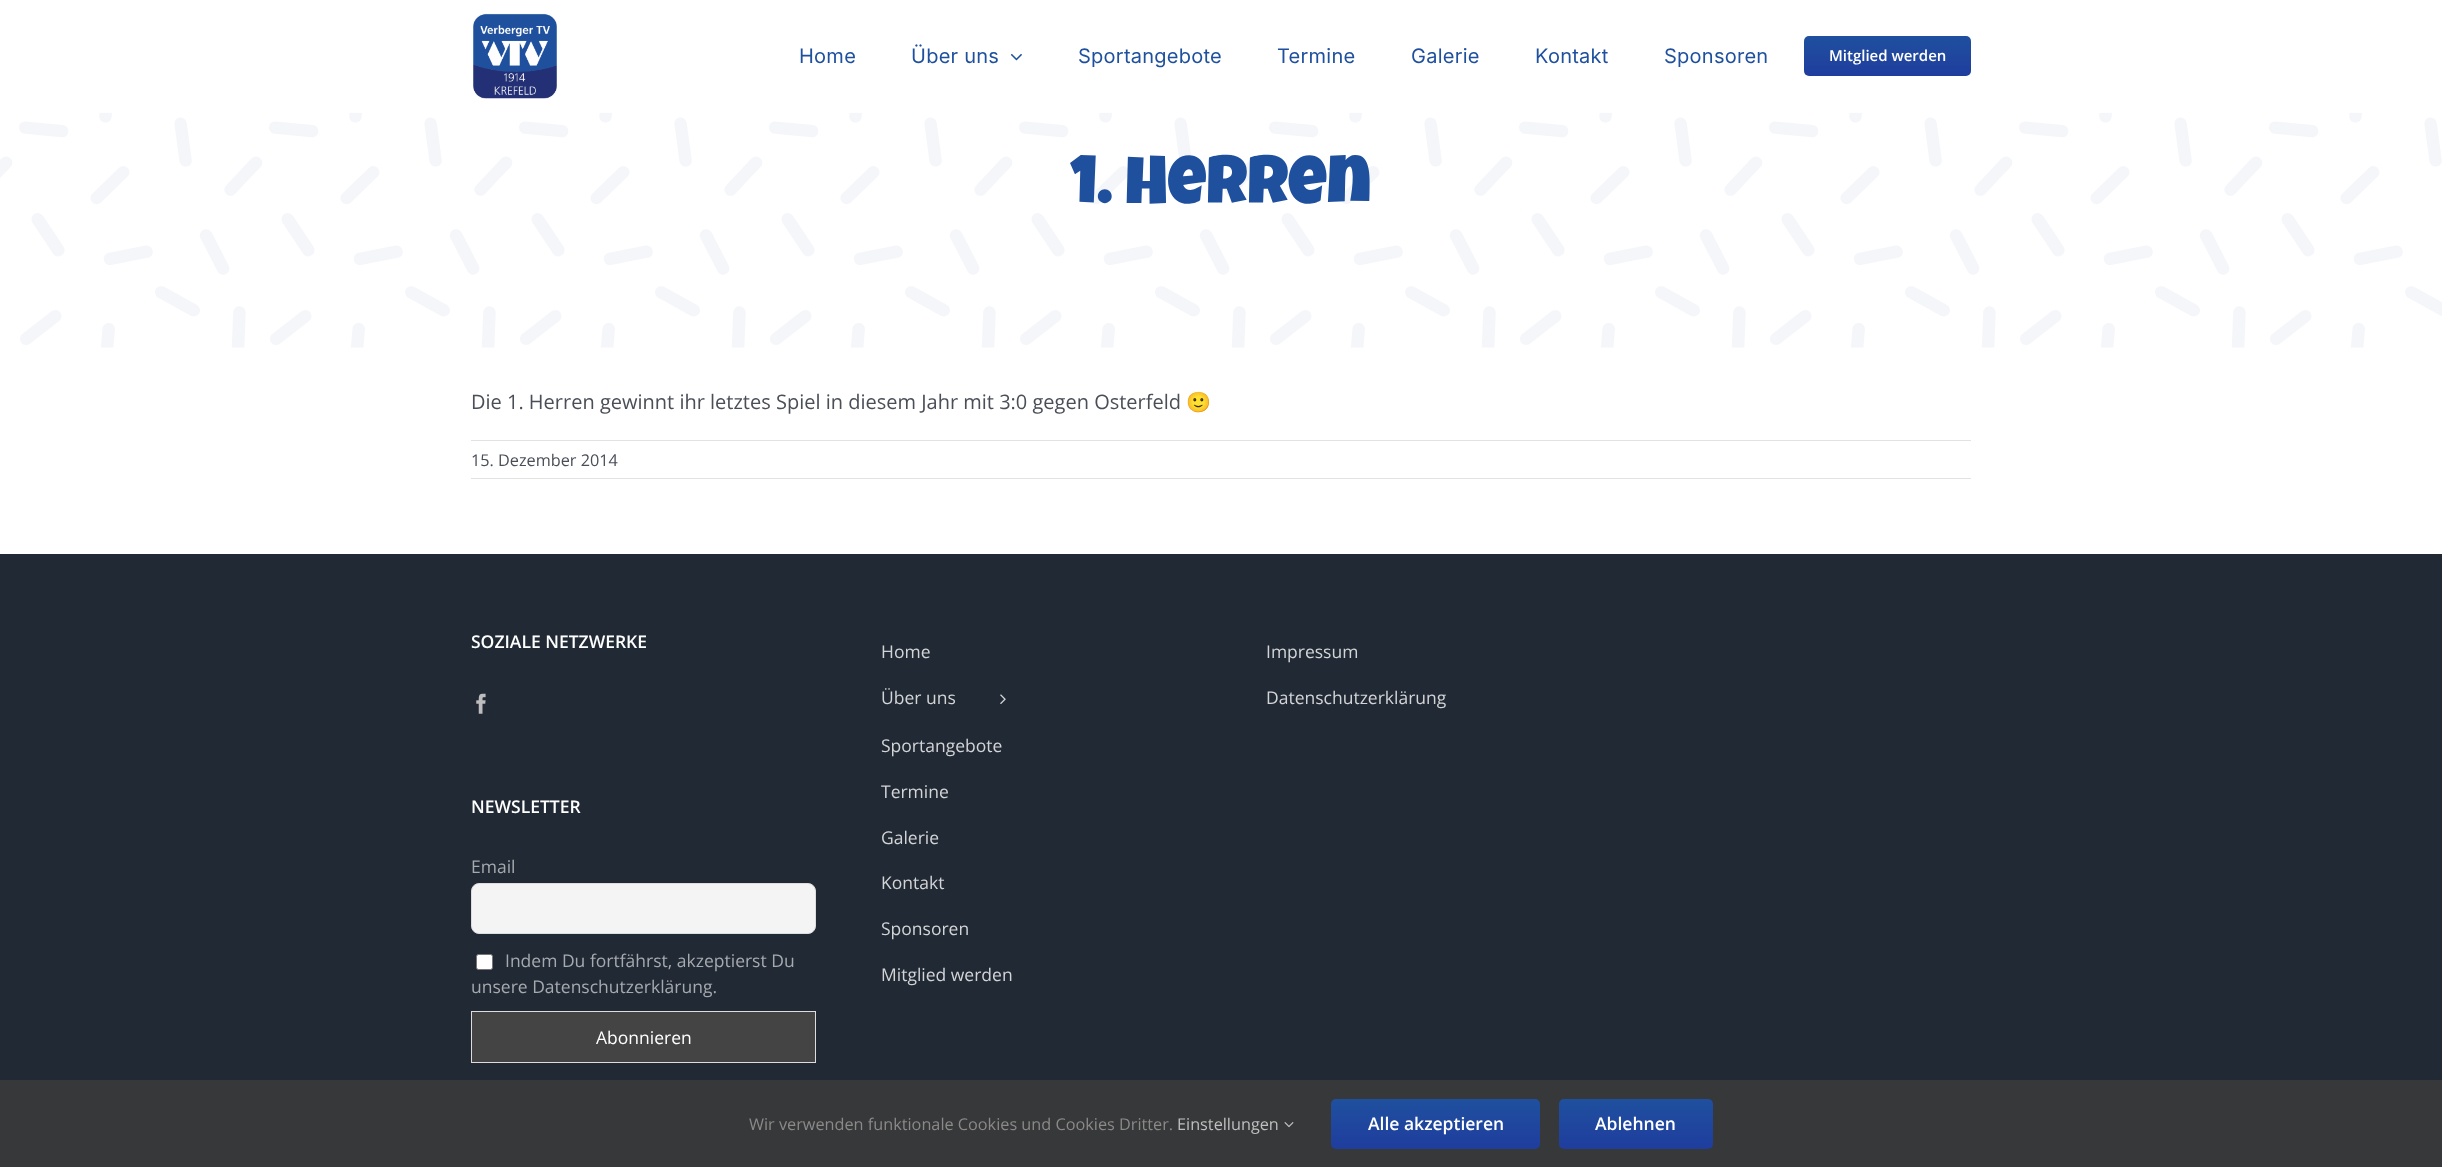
<?xml version="1.0" encoding="UTF-8"?>
<svg xmlns="http://www.w3.org/2000/svg" xmlns:xlink="http://www.w3.org/1999/xlink" width="2442" height="1167">
  <defs>
    <linearGradient id="g1" gradientUnits="userSpaceOnUse" x1="1888" y1="36" x2="1888" y2="76"><stop offset="0" stop-color="#1f509e" /><stop offset="1" stop-color="#1f3d9e" /></linearGradient>
    <linearGradient id="g2" gradientUnits="userSpaceOnUse" x1="1436" y1="1099" x2="1436" y2="1149"><stop offset="0" stop-color="#1f509e" /><stop offset="1" stop-color="#1f3d9e" /></linearGradient>
    <linearGradient id="g3" gradientUnits="userSpaceOnUse" x1="1636" y1="1099" x2="1636" y2="1149"><stop offset="0" stop-color="#1f509e" /><stop offset="1" stop-color="#1f3d9e" /></linearGradient>
  </defs>
  <rect width="100%" height="100%" fill="#ffffff" />
  <image x="0" y="112" width="2442" height="236" xlink:href="image3.png" />
  <rect x="100" y="112" width="2262" height="1" fill="#ffffff" fill-opacity="0.72" />
  <image x="473" y="13" width="84" height="86" xlink:href="image1.png" />
  <image x="1010" y="53" width="12" height="8" xlink:href="image2.png" />
  <rect x="1804" y="36" width="167" height="40" rx="5" fill="url(#g1)" />
  <rect x="471" y="440" width="1500" height="1" fill="#e2e2e2" />
  <rect x="471" y="478" width="1500" height="1" fill="#e2e2e2" />
  <rect y="554" width="2442" height="526" fill="#212934" />
  <image x="476" y="693" width="10" height="21" xlink:href="image4.png" />
  <rect x="471.5" y="883.5" width="344" height="50" rx="7.5" fill="#f4f4f4" stroke="#dddddd" />
  <rect x="476.5" y="954.5" width="16" height="15" rx="2" fill="#ffffff" stroke="#767676" />
  <rect x="471.5" y="1011.5" width="344" height="51" fill="#444444" stroke="#dddddd" />
  <image x="1000" y="694" width="6" height="10" xlink:href="image5.png" />
  <rect y="1080" width="2442" height="87" fill="#363839" />
  <image x="1284" y="1122" width="10" height="6" xlink:href="image6.png" />
  <rect x="1331" y="1099" width="209" height="50" rx="5" fill="url(#g2)" />
  <rect x="1559" y="1099" width="154" height="50" rx="5" fill="url(#g3)" />
  <text x="799" y="63" style="font-family: Inter; font-size: 20px; letter-spacing: 0.25px; fill: #1f509e">Home</text>
  <text x="911" y="63" style="font-family: Inter; font-size: 20px; letter-spacing: 0.25px; fill: #1f509e">Über uns</text>
  <text x="1078" y="63" style="font-family: Inter; font-size: 20px; letter-spacing: 0.25px; fill: #1f509e">Sportangebote</text>
  <text x="1277" y="63" style="font-family: Inter; font-size: 20px; letter-spacing: 0.25px; fill: #1f509e">Termine</text>
  <text x="1411" y="63" style="font-family: Inter; font-size: 20px; letter-spacing: 0.25px; fill: #1f509e">Galerie</text>
  <text x="1535" y="63" style="font-family: Inter; font-size: 20px; letter-spacing: 0.25px; fill: #1f509e">Kontakt</text>
  <text x="1664" y="63" style="font-family: Inter; font-size: 20px; letter-spacing: 0.25px; fill: #1f509e">Sponsoren</text>
  <text x="1829" y="61" style="font-family: Open Sans; font-size: 15px; font-weight: 600; fill: #ffffff">Mitglied werden</text>
  <text x="1071" y="203" style="font-family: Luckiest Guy; font-size: 67.5px; fill: #1f509e">1. Herren</text>
  <text x="471" y="409" style="font-family: Open Sans; font-size: 20px; fill: #4a4e57">Die 1. Herren gewinnt ihr letztes Spiel in diesem Jahr mit 3:0 gegen Osterfeld</text>
  <text x="1186" y="409" style="font-family: Noto Color Emoji; font-size: 20px; fill: #4a4e57">🙂</text>
  <text x="471" y="466" style="font-family: Open Sans; font-size: 16.25px; fill: #4a4e57">15. Dezember 2014</text>
  <text x="471" y="648" style="font-family: Open Sans; font-size: 17.5px; font-weight: 600; fill: #ffffff">SOZIALE NETZWERKE</text>
  <text x="471" y="813" style="font-family: Open Sans; font-size: 17.5px; font-weight: 600; fill: #ffffff">NEWSLETTER</text>
  <text x="471" y="873" style="font-family: Open Sans; font-size: 17.5px; fill: #a6a9ae">Email</text>
  <text x="505" y="967" style="font-family: Open Sans; font-size: 17.5px; fill: #a6a9ae">Indem Du fortfährst, akzeptierst Du</text>
  <text x="471" y="993" style="font-family: Open Sans; font-size: 17.5px; fill: #a6a9ae">unsere Datenschutzerklärung.</text>
  <text x="596" y="1044" style="font-family: Open Sans; font-size: 17.5px; fill: #ffffff">Abonnieren</text>
  <text x="881" y="658" style="font-family: Open Sans; font-size: 17.5px; fill: #d3d4d6">Home</text>
  <text x="881" y="704" style="font-family: Open Sans; font-size: 17.5px; fill: #d3d4d6">Über uns</text>
  <text x="881" y="752" style="font-family: Open Sans; font-size: 17.5px; fill: #d3d4d6">Sportangebote</text>
  <text x="881" y="798" style="font-family: Open Sans; font-size: 17.5px; fill: #d3d4d6">Termine</text>
  <text x="881" y="844" style="font-family: Open Sans; font-size: 17.5px; fill: #d3d4d6">Galerie</text>
  <text x="881" y="889" style="font-family: Open Sans; font-size: 17.5px; fill: #d3d4d6">Kontakt</text>
  <text x="881" y="935" style="font-family: Open Sans; font-size: 17.5px; fill: #d3d4d6">Sponsoren</text>
  <text x="881" y="981" style="font-family: Open Sans; font-size: 17.5px; fill: #d3d4d6">Mitglied werden</text>
  <text x="1266" y="658" style="font-family: Open Sans; font-size: 17.5px; fill: #d3d4d6">Impressum</text>
  <text x="1266" y="704" style="font-family: Open Sans; font-size: 17.5px; fill: #d3d4d6">Datenschutzerklärung</text>
  <text x="749" y="1130" style="font-family: Open Sans; font-size: 16.25px; fill: #8c8989">Wir verwenden funktionale Cookies und Cookies Dritter.</text>
  <text x="1177" y="1130" style="font-family: Open Sans; font-size: 16.25px; fill: #bfbfbf">Einstellungen</text>
  <text x="1368" y="1130" style="font-family: Open Sans; font-size: 17.5px; font-weight: 600; fill: #ffffff">Alle akzeptieren</text>
  <text x="1595" y="1130" style="font-family: Open Sans; font-size: 17.5px; font-weight: 600; fill: #ffffff">Ablehnen</text>
</svg>
